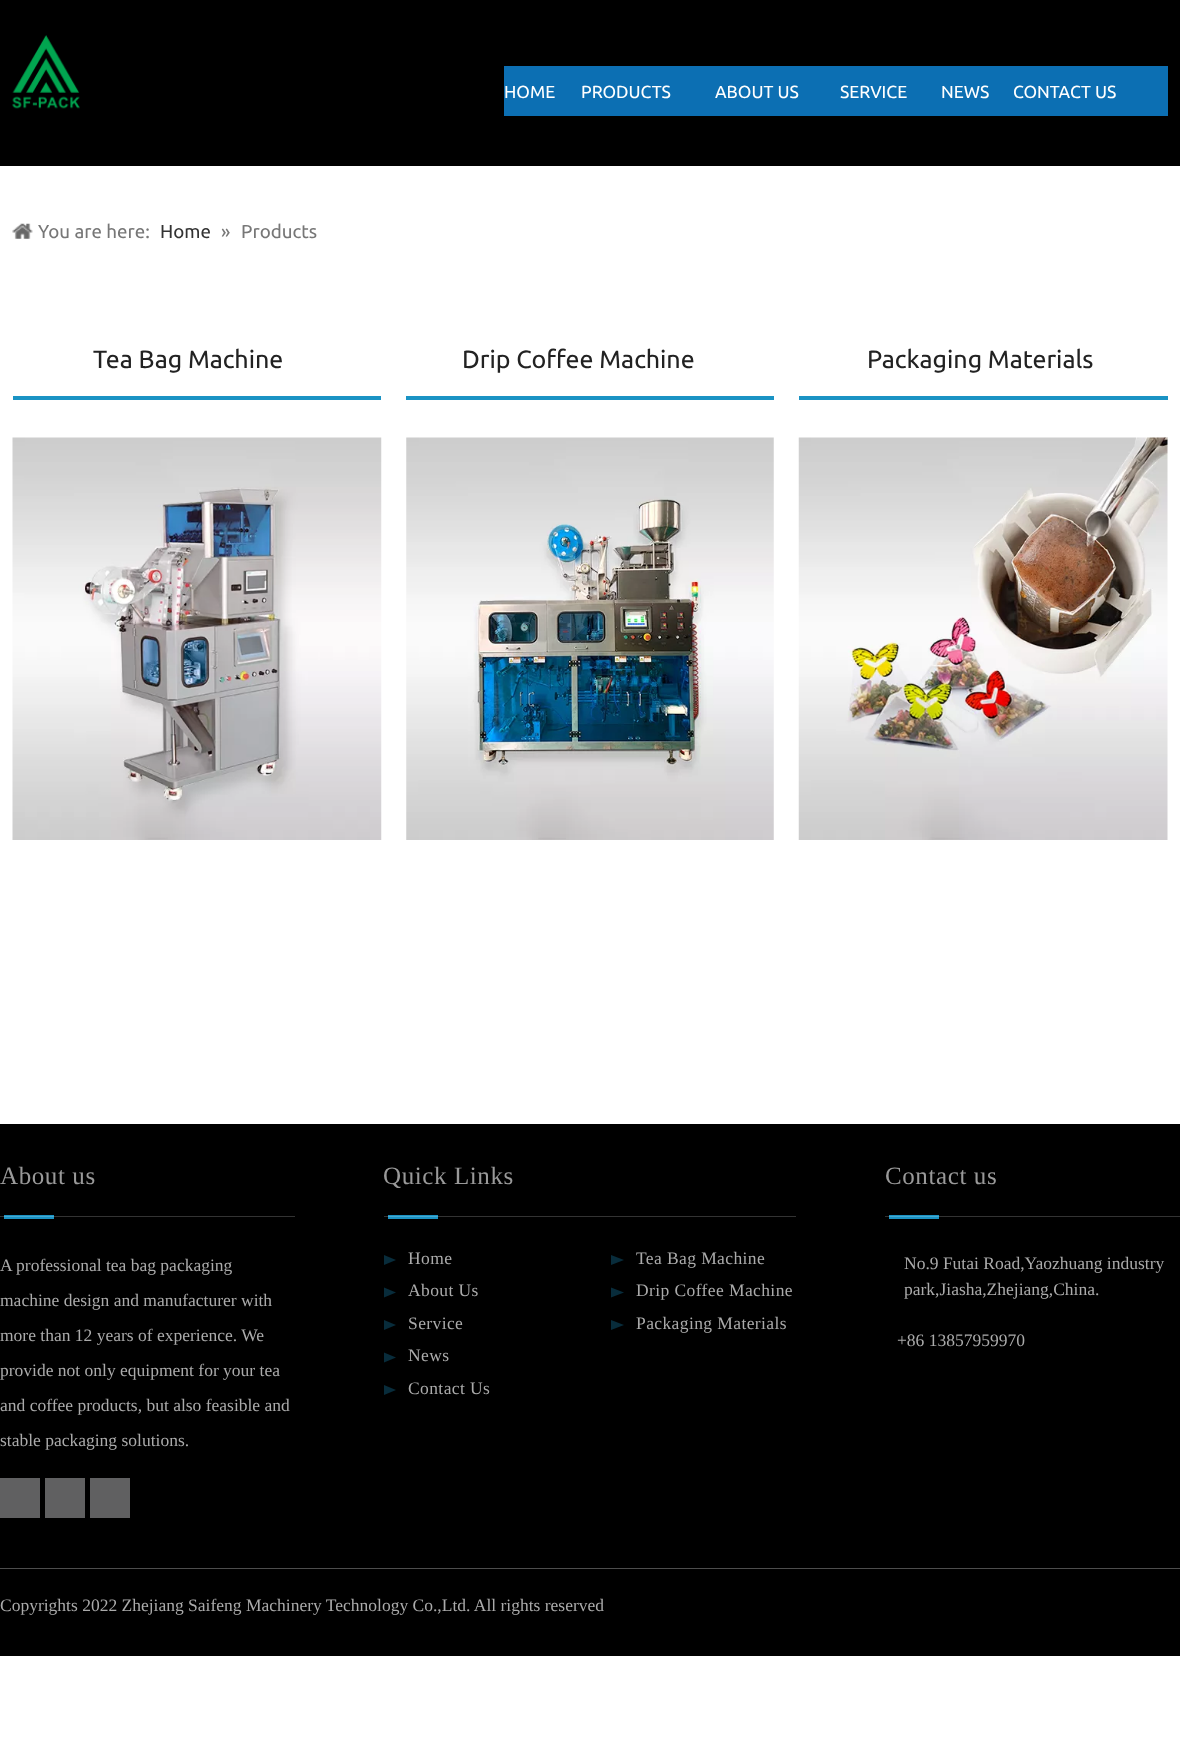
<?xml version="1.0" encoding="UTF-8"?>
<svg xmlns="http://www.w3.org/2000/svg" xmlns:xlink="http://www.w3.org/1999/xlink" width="1180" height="1756">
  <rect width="100%" height="100%" fill="#ffffff" />
  <rect width="1180" height="166" fill="#000000" />
  <image x="12" y="35" width="68" height="74" xlink:href="image1.png" />
  <rect x="504" y="66" width="664" height="50" fill="#0c6fb3" />
  <image x="12" y="223" width="21" height="16" xlink:href="image2.png" />
  <rect x="13" y="396" width="368" height="4" fill="#1a93c4" />
  <image x="12" y="437" width="370" height="403" xlink:href="image3.png" />
  <rect x="406" y="396" width="368" height="4" fill="#1a93c4" />
  <image x="406" y="437" width="368" height="403" xlink:href="image4.png" />
  <rect x="799" y="396" width="369" height="4" fill="#1a93c4" />
  <image x="798" y="437" width="370" height="403" xlink:href="image5.png" />
  <rect y="1124" width="1180" height="532" fill="#000000" />
  <rect x="885" y="1216" width="295" height="1" fill="#333333" />
  <rect x="384" y="1216" width="412" height="1" fill="#333333" />
  <rect y="1216" width="295" height="1" fill="#333333" />
  <rect x="4" y="1215" width="50" height="4" fill="#1a93c4" />
  <rect x="4" y="1216" width="50" height="1" fill="#48a9d0" />
  <rect y="1478" width="40" height="40" fill="#606061" />
  <rect x="45" y="1478" width="40" height="40" fill="#606061" />
  <rect x="90" y="1478" width="40" height="40" fill="#606061" />
  <rect x="388" y="1215" width="50" height="4" fill="#1a93c4" />
  <rect x="388" y="1216" width="50" height="1" fill="#48a9d0" />
  <path d="M 384 1265 v -10 l 12 5 z" fill="#082c3b" />
  <path d="M 384 1297.5 v -10 l 12 5 z" fill="#082c3b" />
  <path d="M 384 1330 v -10 l 12 5 z" fill="#082c3b" />
  <path d="M 384 1362.5 v -10 l 12 5 z" fill="#082c3b" />
  <path d="M 384 1395 v -10 l 12 5 z" fill="#082c3b" />
  <path d="M 611 1265 v -10 l 13 5 z" fill="#082c3b" />
  <path d="M 611 1297.5 v -10 l 13 5 z" fill="#082c3b" />
  <path d="M 611 1330 v -10 l 13 5 z" fill="#082c3b" />
  <rect x="889" y="1215" width="50" height="4" fill="#1a93c4" />
  <rect x="889" y="1216" width="50" height="1" fill="#48a9d0" />
  <rect y="1568" width="1180" height="1" fill="#4d4d4d" />
  <text x="504" y="98" style="font-family: Ubuntu; font-size: 17.5px; fill: #ffffff">HOME</text>
  <text x="581" y="98" style="font-family: Ubuntu; font-size: 17.5px; fill: #ffffff">PRODUCTS</text>
  <text x="715" y="98" style="font-family: Ubuntu; font-size: 17.5px; fill: #ffffff">ABOUT US</text>
  <text x="840" y="98" style="font-family: Ubuntu; font-size: 17.5px; fill: #ffffff">SERVICE</text>
  <text x="941" y="98" style="font-family: Ubuntu; font-size: 17.5px; fill: #ffffff">NEWS</text>
  <text x="1013" y="98" style="font-family: Ubuntu; font-size: 17.5px; fill: #ffffff">CONTACT US</text>
  <text x="38" y="238" style="font-family: Ubuntu; font-size: 18.75px; fill: #777777">You are here:</text>
  <text x="160" y="238" style="font-family: Ubuntu; font-size: 18.75px; fill: #333333">Home</text>
  <text x="221" y="238" style="font-family: Ubuntu; font-size: 18.75px; fill: #777777">»</text>
  <text x="241" y="238" style="font-family: Ubuntu; font-size: 18.75px; fill: #777777">Products</text>
  <text x="93" y="368" style="font-family: Ubuntu; font-size: 25px; fill: #222222">Tea Bag Machine</text>
  <text x="462" y="368" style="font-family: Ubuntu; font-size: 25px; fill: #222222">Drip Coffee Machine</text>
  <text x="867" y="368" style="font-family: Ubuntu; font-size: 25px; fill: #222222">Packaging Materials</text>
  <text x="0" y="1184" style="font-family: Liberation Serif; font-size: 25px; letter-spacing: 0.6px; fill: #999999">About us</text>
  <text x="0" y="1271" style="font-family: Liberation Serif; font-size: 17.5px; fill: #aaaaaa">A professional tea bag packaging</text>
  <text x="0" y="1306" style="font-family: Liberation Serif; font-size: 17.5px; fill: #aaaaaa">machine design and manufacturer with</text>
  <text x="0" y="1341" style="font-family: Liberation Serif; font-size: 17.5px; fill: #aaaaaa">more than 12 years of experience. We</text>
  <text x="0" y="1376" style="font-family: Liberation Serif; font-size: 17.5px; fill: #aaaaaa">provide not only equipment for your tea</text>
  <text x="0" y="1411" style="font-family: Liberation Serif; font-size: 17.5px; fill: #aaaaaa">and coffee products, but also feasible and</text>
  <text x="0" y="1446" style="font-family: Liberation Serif; font-size: 17.5px; fill: #aaaaaa">stable packaging solutions.</text>
  <text x="383" y="1184" style="font-family: Liberation Serif; font-size: 25px; letter-spacing: 0.6px; fill: #999999">Quick Links</text>
  <text x="408" y="1264" style="font-family: Liberation Serif; font-size: 17.5px; letter-spacing: 0.4px; fill: #aaaaaa">Home</text>
  <text x="408" y="1296" style="font-family: Liberation Serif; font-size: 17.5px; letter-spacing: 0.4px; fill: #aaaaaa">About Us</text>
  <text x="408" y="1329" style="font-family: Liberation Serif; font-size: 17.5px; letter-spacing: 0.4px; fill: #aaaaaa">Service</text>
  <text x="408" y="1361" style="font-family: Liberation Serif; font-size: 17.5px; letter-spacing: 0.4px; fill: #aaaaaa">News</text>
  <text x="408" y="1394" style="font-family: Liberation Serif; font-size: 17.5px; letter-spacing: 0.4px; fill: #aaaaaa">Contact Us</text>
  <text x="636" y="1264" style="font-family: Liberation Serif; font-size: 17.5px; letter-spacing: 0.4px; fill: #aaaaaa">Tea Bag Machine</text>
  <text x="636" y="1296" style="font-family: Liberation Serif; font-size: 17.5px; letter-spacing: 0.4px; fill: #aaaaaa">Drip Coffee Machine</text>
  <text x="636" y="1329" style="font-family: Liberation Serif; font-size: 17.5px; letter-spacing: 0.4px; fill: #aaaaaa">Packaging Materials</text>
  <text x="885" y="1184" style="font-family: Liberation Serif; font-size: 25px; letter-spacing: 0.6px; fill: #999999">Contact us</text>
  <text x="904" y="1269" style="font-family: Liberation Serif; font-size: 17.5px; fill: #aaaaaa">No.9 Futai Road,Yaozhuang industry</text>
  <text x="904" y="1295" style="font-family: Liberation Serif; font-size: 17.5px; fill: #aaaaaa">park,Jiasha,Zhejiang,China.</text>
  <text x="897" y="1346" style="font-family: Liberation Serif; font-size: 17.5px; fill: #aaaaaa">+86 13857959970</text>
  <text x="0" y="1611" style="font-family: Liberation Serif; font-size: 17.5px; fill: #aaaaaa">Copyrights 2022 Zhejiang Saifeng Machinery Technology Co.,Ltd. All rights reserved</text>
</svg>
